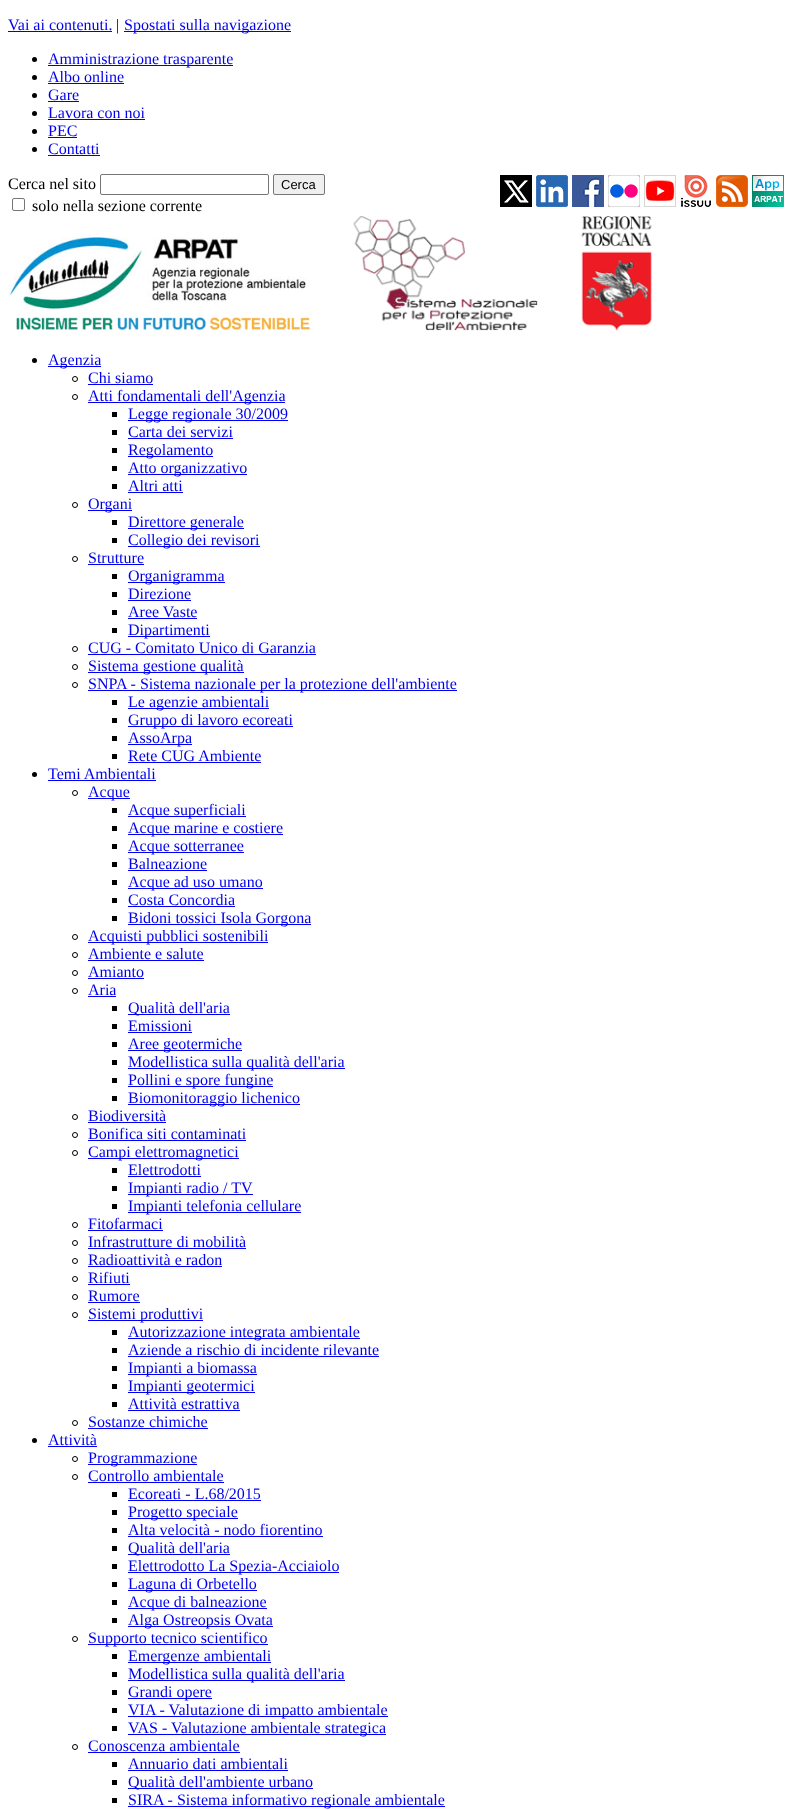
<?xml version="1.0" encoding="UTF-8"?>
<svg xmlns="http://www.w3.org/2000/svg" xmlns:xlink="http://www.w3.org/1999/xlink" width="792" height="1810">
  <rect width="100%" height="100%" fill="#ffffff" />
  <rect x="8" y="31" width="104" height="1" fill="#0000ee" />
  <rect x="124" y="31" width="167" height="1" fill="#0000ee" />
  <circle cx="34.5" cy="59.5" r="2.5" fill="#000000" />
  <rect x="48" y="65" width="185" height="1" fill="#0000ee" />
  <circle cx="34.5" cy="77.5" r="2.5" fill="#000000" />
  <rect x="48" y="83" width="76" height="1" fill="#0000ee" />
  <circle cx="34.5" cy="95.5" r="2.5" fill="#000000" />
  <rect x="48" y="101" width="31" height="1" fill="#0000ee" />
  <circle cx="34.5" cy="113.5" r="2.5" fill="#000000" />
  <rect x="48" y="119" width="97" height="1" fill="#0000ee" />
  <circle cx="34.5" cy="131.5" r="2.5" fill="#000000" />
  <rect x="48" y="137" width="29" height="1" fill="#0000ee" />
  <circle cx="34.5" cy="149.5" r="2.5" fill="#000000" />
  <rect x="48" y="155" width="52" height="1" fill="#0000ee" />
  <image x="500" y="175" width="32" height="32" xlink:href="image1.png" />
  <image x="536" y="175" width="32" height="32" xlink:href="image2.png" />
  <image x="572" y="175" width="32" height="32" xlink:href="image3.png" />
  <image x="608" y="175" width="32" height="32" xlink:href="image4.png" />
  <image x="644" y="175" width="32" height="32" xlink:href="image5.png" />
  <image x="681" y="175" width="30" height="32" xlink:href="image6.png" />
  <image x="716" y="175" width="32" height="32" xlink:href="image7.png" />
  <image x="752" y="175" width="32" height="32" xlink:href="image8.png" />
  <image x="8" y="237" width="302" height="94" xlink:href="image9.png" />
  <image x="353" y="216" width="185" height="115" xlink:href="image10.png" />
  <image x="581" y="216" width="71" height="115" xlink:href="image11.png" />
  <rect x="100.5" y="174.5" width="168" height="20" rx="1.5" fill="none" stroke="#767676" />
  <rect x="273.5" y="174.5" width="51" height="20" rx="1.5" fill="#efefef" stroke="#767676" />
  <rect x="12.5" y="198.5" width="12" height="12" rx="1.5" fill="none" stroke="#767676" />
  <circle cx="34.5" cy="360.5" r="2.5" fill="#000000" />
  <rect x="48" y="366" width="53" height="1" fill="#0000ee" />
  <circle cx="75" cy="379" r="2.5" fill="none" stroke="#000000" />
  <rect x="88" y="384" width="65" height="1" fill="#0000ee" />
  <circle cx="75" cy="397" r="2.5" fill="none" stroke="#000000" />
  <rect x="88" y="402" width="197" height="1" fill="#0000ee" />
  <rect x="112" y="412" width="5" height="5" fill="#000000" />
  <rect x="128" y="420" width="160" height="1" fill="#0000ee" />
  <rect x="112" y="430" width="5" height="5" fill="#000000" />
  <rect x="128" y="438" width="105" height="1" fill="#0000ee" />
  <rect x="112" y="448" width="5" height="5" fill="#000000" />
  <rect x="128" y="456" width="85" height="1" fill="#0000ee" />
  <rect x="112" y="466" width="5" height="5" fill="#000000" />
  <rect x="128" y="474" width="119" height="1" fill="#0000ee" />
  <rect x="112" y="484" width="5" height="5" fill="#000000" />
  <rect x="128" y="492" width="55" height="1" fill="#0000ee" />
  <circle cx="75" cy="505" r="2.5" fill="none" stroke="#000000" />
  <rect x="88" y="510" width="44" height="1" fill="#0000ee" />
  <rect x="112" y="520" width="5" height="5" fill="#000000" />
  <rect x="128" y="528" width="116" height="1" fill="#0000ee" />
  <rect x="112" y="538" width="5" height="5" fill="#000000" />
  <rect x="128" y="546" width="132" height="1" fill="#0000ee" />
  <circle cx="75" cy="559" r="2.5" fill="none" stroke="#000000" />
  <rect x="88" y="564" width="56" height="1" fill="#0000ee" />
  <rect x="112" y="574" width="5" height="5" fill="#000000" />
  <rect x="128" y="582" width="97" height="1" fill="#0000ee" />
  <rect x="112" y="592" width="5" height="5" fill="#000000" />
  <rect x="128" y="600" width="63" height="1" fill="#0000ee" />
  <rect x="112" y="610" width="5" height="5" fill="#000000" />
  <rect x="128" y="618" width="69" height="1" fill="#0000ee" />
  <rect x="112" y="628" width="5" height="5" fill="#000000" />
  <rect x="128" y="636" width="82" height="1" fill="#0000ee" />
  <circle cx="75" cy="649" r="2.5" fill="none" stroke="#000000" />
  <rect x="88" y="654" width="228" height="1" fill="#0000ee" />
  <circle cx="75" cy="667" r="2.5" fill="none" stroke="#000000" />
  <rect x="88" y="672" width="156" height="1" fill="#0000ee" />
  <circle cx="75" cy="685" r="2.5" fill="none" stroke="#000000" />
  <rect x="88" y="690" width="369" height="1" fill="#0000ee" />
  <rect x="112" y="700" width="5" height="5" fill="#000000" />
  <rect x="128" y="708" width="141" height="1" fill="#0000ee" />
  <rect x="112" y="718" width="5" height="5" fill="#000000" />
  <rect x="128" y="726" width="165" height="1" fill="#0000ee" />
  <rect x="112" y="736" width="5" height="5" fill="#000000" />
  <rect x="128" y="744" width="64" height="1" fill="#0000ee" />
  <rect x="112" y="754" width="5" height="5" fill="#000000" />
  <rect x="128" y="762" width="133" height="1" fill="#0000ee" />
  <circle cx="34.5" cy="774.5" r="2.5" fill="#000000" />
  <rect x="48" y="780" width="108" height="1" fill="#0000ee" />
  <circle cx="75" cy="793" r="2.5" fill="none" stroke="#000000" />
  <rect x="88" y="798" width="42" height="1" fill="#0000ee" />
  <rect x="112" y="808" width="5" height="5" fill="#000000" />
  <rect x="128" y="816" width="118" height="1" fill="#0000ee" />
  <rect x="112" y="826" width="5" height="5" fill="#000000" />
  <rect x="128" y="834" width="155" height="1" fill="#0000ee" />
  <rect x="112" y="844" width="5" height="5" fill="#000000" />
  <rect x="128" y="852" width="116" height="1" fill="#0000ee" />
  <rect x="112" y="862" width="5" height="5" fill="#000000" />
  <rect x="128" y="870" width="79" height="1" fill="#0000ee" />
  <rect x="112" y="880" width="5" height="5" fill="#000000" />
  <rect x="128" y="888" width="135" height="1" fill="#0000ee" />
  <rect x="112" y="898" width="5" height="5" fill="#000000" />
  <rect x="128" y="906" width="107" height="1" fill="#0000ee" />
  <rect x="112" y="916" width="5" height="5" fill="#000000" />
  <rect x="128" y="924" width="183" height="1" fill="#0000ee" />
  <circle cx="75" cy="937" r="2.5" fill="none" stroke="#000000" />
  <rect x="88" y="942" width="180" height="1" fill="#0000ee" />
  <circle cx="75" cy="955" r="2.5" fill="none" stroke="#000000" />
  <rect x="88" y="960" width="116" height="1" fill="#0000ee" />
  <circle cx="75" cy="973" r="2.5" fill="none" stroke="#000000" />
  <rect x="88" y="978" width="56" height="1" fill="#0000ee" />
  <circle cx="75" cy="991" r="2.5" fill="none" stroke="#000000" />
  <rect x="88" y="996" width="28" height="1" fill="#0000ee" />
  <rect x="112" y="1006" width="5" height="5" fill="#000000" />
  <rect x="128" y="1014" width="102" height="1" fill="#0000ee" />
  <rect x="112" y="1024" width="5" height="5" fill="#000000" />
  <rect x="128" y="1032" width="64" height="1" fill="#0000ee" />
  <rect x="112" y="1042" width="5" height="5" fill="#000000" />
  <rect x="128" y="1050" width="114" height="1" fill="#0000ee" />
  <rect x="112" y="1060" width="5" height="5" fill="#000000" />
  <rect x="128" y="1068" width="217" height="1" fill="#0000ee" />
  <rect x="112" y="1078" width="5" height="5" fill="#000000" />
  <rect x="128" y="1086" width="145" height="1" fill="#0000ee" />
  <rect x="112" y="1096" width="5" height="5" fill="#000000" />
  <rect x="128" y="1104" width="172" height="1" fill="#0000ee" />
  <circle cx="75" cy="1117" r="2.5" fill="none" stroke="#000000" />
  <rect x="88" y="1122" width="78" height="1" fill="#0000ee" />
  <circle cx="75" cy="1135" r="2.5" fill="none" stroke="#000000" />
  <rect x="88" y="1140" width="158" height="1" fill="#0000ee" />
  <circle cx="75" cy="1153" r="2.5" fill="none" stroke="#000000" />
  <rect x="88" y="1158" width="151" height="1" fill="#0000ee" />
  <rect x="112" y="1168" width="5" height="5" fill="#000000" />
  <rect x="128" y="1176" width="73" height="1" fill="#0000ee" />
  <rect x="112" y="1186" width="5" height="5" fill="#000000" />
  <rect x="128" y="1194" width="125" height="1" fill="#0000ee" />
  <rect x="112" y="1204" width="5" height="5" fill="#000000" />
  <rect x="128" y="1212" width="173" height="1" fill="#0000ee" />
  <circle cx="75" cy="1225" r="2.5" fill="none" stroke="#000000" />
  <rect x="88" y="1230" width="75" height="1" fill="#0000ee" />
  <circle cx="75" cy="1243" r="2.5" fill="none" stroke="#000000" />
  <rect x="88" y="1248" width="158" height="1" fill="#0000ee" />
  <circle cx="75" cy="1261" r="2.5" fill="none" stroke="#000000" />
  <rect x="88" y="1266" width="134" height="1" fill="#0000ee" />
  <circle cx="75" cy="1279" r="2.5" fill="none" stroke="#000000" />
  <rect x="88" y="1284" width="42" height="1" fill="#0000ee" />
  <circle cx="75" cy="1297" r="2.5" fill="none" stroke="#000000" />
  <rect x="88" y="1302" width="52" height="1" fill="#0000ee" />
  <circle cx="75" cy="1315" r="2.5" fill="none" stroke="#000000" />
  <rect x="88" y="1320" width="115" height="1" fill="#0000ee" />
  <rect x="112" y="1330" width="5" height="5" fill="#000000" />
  <rect x="128" y="1338" width="232" height="1" fill="#0000ee" />
  <rect x="112" y="1348" width="5" height="5" fill="#000000" />
  <rect x="128" y="1356" width="251" height="1" fill="#0000ee" />
  <rect x="112" y="1366" width="5" height="5" fill="#000000" />
  <rect x="128" y="1374" width="129" height="1" fill="#0000ee" />
  <rect x="112" y="1384" width="5" height="5" fill="#000000" />
  <rect x="128" y="1392" width="127" height="1" fill="#0000ee" />
  <rect x="112" y="1402" width="5" height="5" fill="#000000" />
  <rect x="128" y="1410" width="112" height="1" fill="#0000ee" />
  <circle cx="75" cy="1423" r="2.5" fill="none" stroke="#000000" />
  <rect x="88" y="1428" width="120" height="1" fill="#0000ee" />
  <circle cx="34.5" cy="1440.5" r="2.5" fill="#000000" />
  <rect x="48" y="1446" width="49" height="1" fill="#0000ee" />
  <circle cx="75" cy="1459" r="2.5" fill="none" stroke="#000000" />
  <rect x="88" y="1464" width="109" height="1" fill="#0000ee" />
  <circle cx="75" cy="1477" r="2.5" fill="none" stroke="#000000" />
  <rect x="88" y="1482" width="136" height="1" fill="#0000ee" />
  <rect x="112" y="1492" width="5" height="5" fill="#000000" />
  <rect x="128" y="1500" width="133" height="1" fill="#0000ee" />
  <rect x="112" y="1510" width="5" height="5" fill="#000000" />
  <rect x="128" y="1518" width="110" height="1" fill="#0000ee" />
  <rect x="112" y="1528" width="5" height="5" fill="#000000" />
  <rect x="128" y="1536" width="195" height="1" fill="#0000ee" />
  <rect x="112" y="1546" width="5" height="5" fill="#000000" />
  <rect x="128" y="1554" width="102" height="1" fill="#0000ee" />
  <rect x="112" y="1564" width="5" height="5" fill="#000000" />
  <rect x="128" y="1572" width="211" height="1" fill="#0000ee" />
  <rect x="112" y="1582" width="5" height="5" fill="#000000" />
  <rect x="128" y="1590" width="129" height="1" fill="#0000ee" />
  <rect x="112" y="1600" width="5" height="5" fill="#000000" />
  <rect x="128" y="1608" width="139" height="1" fill="#0000ee" />
  <rect x="112" y="1618" width="5" height="5" fill="#000000" />
  <rect x="128" y="1626" width="145" height="1" fill="#0000ee" />
  <circle cx="75" cy="1639" r="2.5" fill="none" stroke="#000000" />
  <rect x="88" y="1644" width="180" height="1" fill="#0000ee" />
  <rect x="112" y="1654" width="5" height="5" fill="#000000" />
  <rect x="128" y="1662" width="143" height="1" fill="#0000ee" />
  <rect x="112" y="1672" width="5" height="5" fill="#000000" />
  <rect x="128" y="1680" width="217" height="1" fill="#0000ee" />
  <rect x="112" y="1690" width="5" height="5" fill="#000000" />
  <rect x="128" y="1698" width="84" height="1" fill="#0000ee" />
  <rect x="112" y="1708" width="5" height="5" fill="#000000" />
  <rect x="128" y="1716" width="260" height="1" fill="#0000ee" />
  <rect x="112" y="1726" width="5" height="5" fill="#000000" />
  <rect x="128" y="1734" width="258" height="1" fill="#0000ee" />
  <circle cx="75" cy="1747" r="2.5" fill="none" stroke="#000000" />
  <rect x="88" y="1752" width="152" height="1" fill="#0000ee" />
  <rect x="112" y="1762" width="5" height="5" fill="#000000" />
  <rect x="128" y="1770" width="160" height="1" fill="#0000ee" />
  <rect x="112" y="1780" width="5" height="5" fill="#000000" />
  <rect x="128" y="1788" width="185" height="1" fill="#0000ee" />
  <rect x="112" y="1798" width="5" height="5" fill="#000000" />
  <rect x="128" y="1806" width="317" height="1" fill="#0000ee" />
  <text x="8" y="30" style="font-family: Liberation Serif; font-size: 16px; fill: #0000ee">Vai ai contenuti.</text>
  <text x="116" y="30" style="font-family: Liberation Serif; font-size: 16px; fill: #000000">|</text>
  <text x="124" y="30" style="font-family: Liberation Serif; font-size: 16px; fill: #0000ee">Spostati sulla navigazione</text>
  <text x="48" y="64" style="font-family: Liberation Serif; font-size: 16px; fill: #0000ee">Amministrazione trasparente</text>
  <text x="48" y="82" style="font-family: Liberation Serif; font-size: 16px; fill: #0000ee">Albo online</text>
  <text x="48" y="100" style="font-family: Liberation Serif; font-size: 16px; fill: #0000ee">Gare</text>
  <text x="48" y="118" style="font-family: Liberation Serif; font-size: 16px; fill: #0000ee">Lavora con noi</text>
  <text x="48" y="136" style="font-family: Liberation Serif; font-size: 16px; fill: #0000ee">PEC</text>
  <text x="48" y="154" style="font-family: Liberation Serif; font-size: 16px; fill: #0000ee">Contatti</text>
  <text x="8" y="189" style="font-family: Liberation Serif; font-size: 16px; fill: #000000">Cerca nel sito</text>
  <text x="281" y="189" style="font-family: Liberation Sans; font-size: 13px; fill: #000000">Cerca</text>
  <text x="32" y="211" style="font-family: Liberation Serif; font-size: 16px; fill: #000000">solo nella sezione corrente</text>
  <text x="48" y="365" style="font-family: Liberation Serif; font-size: 16px; fill: #0000ee">Agenzia</text>
  <text x="88" y="383" style="font-family: Liberation Serif; font-size: 16px; fill: #0000ee">Chi siamo</text>
  <text x="88" y="401" style="font-family: Liberation Serif; font-size: 16px; fill: #0000ee">Atti fondamentali dell'Agenzia</text>
  <text x="128" y="419" style="font-family: Liberation Serif; font-size: 16px; fill: #0000ee">Legge regionale 30/2009</text>
  <text x="128" y="437" style="font-family: Liberation Serif; font-size: 16px; fill: #0000ee">Carta dei servizi</text>
  <text x="128" y="455" style="font-family: Liberation Serif; font-size: 16px; fill: #0000ee">Regolamento</text>
  <text x="128" y="473" style="font-family: Liberation Serif; font-size: 16px; fill: #0000ee">Atto organizzativo</text>
  <text x="128" y="491" style="font-family: Liberation Serif; font-size: 16px; fill: #0000ee">Altri atti</text>
  <text x="88" y="509" style="font-family: Liberation Serif; font-size: 16px; fill: #0000ee">Organi</text>
  <text x="128" y="527" style="font-family: Liberation Serif; font-size: 16px; fill: #0000ee">Direttore generale</text>
  <text x="128" y="545" style="font-family: Liberation Serif; font-size: 16px; fill: #0000ee">Collegio dei revisori</text>
  <text x="88" y="563" style="font-family: Liberation Serif; font-size: 16px; fill: #0000ee">Strutture</text>
  <text x="128" y="581" style="font-family: Liberation Serif; font-size: 16px; fill: #0000ee">Organigramma</text>
  <text x="128" y="599" style="font-family: Liberation Serif; font-size: 16px; fill: #0000ee">Direzione</text>
  <text x="128" y="617" style="font-family: Liberation Serif; font-size: 16px; fill: #0000ee">Aree Vaste</text>
  <text x="128" y="635" style="font-family: Liberation Serif; font-size: 16px; fill: #0000ee">Dipartimenti</text>
  <text x="88" y="653" style="font-family: Liberation Serif; font-size: 16px; fill: #0000ee">CUG - Comitato Unico di Garanzia</text>
  <text x="88" y="671" style="font-family: Liberation Serif; font-size: 16px; fill: #0000ee">Sistema gestione qualità</text>
  <text x="88" y="689" style="font-family: Liberation Serif; font-size: 16px; fill: #0000ee">SNPA - Sistema nazionale per la protezione dell'ambiente</text>
  <text x="128" y="707" style="font-family: Liberation Serif; font-size: 16px; fill: #0000ee">Le agenzie ambientali</text>
  <text x="128" y="725" style="font-family: Liberation Serif; font-size: 16px; fill: #0000ee">Gruppo di lavoro ecoreati</text>
  <text x="128" y="743" style="font-family: Liberation Serif; font-size: 16px; fill: #0000ee">AssoArpa</text>
  <text x="128" y="761" style="font-family: Liberation Serif; font-size: 16px; fill: #0000ee">Rete CUG Ambiente</text>
  <text x="48" y="779" style="font-family: Liberation Serif; font-size: 16px; fill: #0000ee">Temi Ambientali</text>
  <text x="88" y="797" style="font-family: Liberation Serif; font-size: 16px; fill: #0000ee">Acque</text>
  <text x="128" y="815" style="font-family: Liberation Serif; font-size: 16px; fill: #0000ee">Acque superficiali</text>
  <text x="128" y="833" style="font-family: Liberation Serif; font-size: 16px; fill: #0000ee">Acque marine e costiere</text>
  <text x="128" y="851" style="font-family: Liberation Serif; font-size: 16px; fill: #0000ee">Acque sotterranee</text>
  <text x="128" y="869" style="font-family: Liberation Serif; font-size: 16px; fill: #0000ee">Balneazione</text>
  <text x="128" y="887" style="font-family: Liberation Serif; font-size: 16px; fill: #0000ee">Acque ad uso umano</text>
  <text x="128" y="905" style="font-family: Liberation Serif; font-size: 16px; fill: #0000ee">Costa Concordia</text>
  <text x="128" y="923" style="font-family: Liberation Serif; font-size: 16px; fill: #0000ee">Bidoni tossici Isola Gorgona</text>
  <text x="88" y="941" style="font-family: Liberation Serif; font-size: 16px; fill: #0000ee">Acquisti pubblici sostenibili</text>
  <text x="88" y="959" style="font-family: Liberation Serif; font-size: 16px; fill: #0000ee">Ambiente e salute</text>
  <text x="88" y="977" style="font-family: Liberation Serif; font-size: 16px; fill: #0000ee">Amianto</text>
  <text x="88" y="995" style="font-family: Liberation Serif; font-size: 16px; fill: #0000ee">Aria</text>
  <text x="128" y="1013" style="font-family: Liberation Serif; font-size: 16px; fill: #0000ee">Qualità dell'aria</text>
  <text x="128" y="1031" style="font-family: Liberation Serif; font-size: 16px; fill: #0000ee">Emissioni</text>
  <text x="128" y="1049" style="font-family: Liberation Serif; font-size: 16px; fill: #0000ee">Aree geotermiche</text>
  <text x="128" y="1067" style="font-family: Liberation Serif; font-size: 16px; fill: #0000ee">Modellistica sulla qualità dell'aria</text>
  <text x="128" y="1085" style="font-family: Liberation Serif; font-size: 16px; fill: #0000ee">Pollini e spore fungine</text>
  <text x="128" y="1103" style="font-family: Liberation Serif; font-size: 16px; fill: #0000ee">Biomonitoraggio lichenico</text>
  <text x="88" y="1121" style="font-family: Liberation Serif; font-size: 16px; fill: #0000ee">Biodiversità</text>
  <text x="88" y="1139" style="font-family: Liberation Serif; font-size: 16px; fill: #0000ee">Bonifica siti contaminati</text>
  <text x="88" y="1157" style="font-family: Liberation Serif; font-size: 16px; fill: #0000ee">Campi elettromagnetici</text>
  <text x="128" y="1175" style="font-family: Liberation Serif; font-size: 16px; fill: #0000ee">Elettrodotti</text>
  <text x="128" y="1193" style="font-family: Liberation Serif; font-size: 16px; fill: #0000ee">Impianti radio / TV</text>
  <text x="128" y="1211" style="font-family: Liberation Serif; font-size: 16px; fill: #0000ee">Impianti telefonia cellulare</text>
  <text x="88" y="1229" style="font-family: Liberation Serif; font-size: 16px; fill: #0000ee">Fitofarmaci</text>
  <text x="88" y="1247" style="font-family: Liberation Serif; font-size: 16px; fill: #0000ee">Infrastrutture di mobilità</text>
  <text x="88" y="1265" style="font-family: Liberation Serif; font-size: 16px; fill: #0000ee">Radioattività e radon</text>
  <text x="88" y="1283" style="font-family: Liberation Serif; font-size: 16px; fill: #0000ee">Rifiuti</text>
  <text x="88" y="1301" style="font-family: Liberation Serif; font-size: 16px; fill: #0000ee">Rumore</text>
  <text x="88" y="1319" style="font-family: Liberation Serif; font-size: 16px; fill: #0000ee">Sistemi produttivi</text>
  <text x="128" y="1337" style="font-family: Liberation Serif; font-size: 16px; fill: #0000ee">Autorizzazione integrata ambientale</text>
  <text x="128" y="1355" style="font-family: Liberation Serif; font-size: 16px; fill: #0000ee">Aziende a rischio di incidente rilevante</text>
  <text x="128" y="1373" style="font-family: Liberation Serif; font-size: 16px; fill: #0000ee">Impianti a biomassa</text>
  <text x="128" y="1391" style="font-family: Liberation Serif; font-size: 16px; fill: #0000ee">Impianti geotermici</text>
  <text x="128" y="1409" style="font-family: Liberation Serif; font-size: 16px; fill: #0000ee">Attività estrattiva</text>
  <text x="88" y="1427" style="font-family: Liberation Serif; font-size: 16px; fill: #0000ee">Sostanze chimiche</text>
  <text x="48" y="1445" style="font-family: Liberation Serif; font-size: 16px; fill: #0000ee">Attività</text>
  <text x="88" y="1463" style="font-family: Liberation Serif; font-size: 16px; fill: #0000ee">Programmazione</text>
  <text x="88" y="1481" style="font-family: Liberation Serif; font-size: 16px; fill: #0000ee">Controllo ambientale</text>
  <text x="128" y="1499" style="font-family: Liberation Serif; font-size: 16px; fill: #0000ee">Ecoreati - L.68/2015</text>
  <text x="128" y="1517" style="font-family: Liberation Serif; font-size: 16px; fill: #0000ee">Progetto speciale</text>
  <text x="128" y="1535" style="font-family: Liberation Serif; font-size: 16px; fill: #0000ee">Alta velocità - nodo fiorentino</text>
  <text x="128" y="1553" style="font-family: Liberation Serif; font-size: 16px; fill: #0000ee">Qualità dell'aria</text>
  <text x="128" y="1571" style="font-family: Liberation Serif; font-size: 16px; fill: #0000ee">Elettrodotto La Spezia-Acciaiolo</text>
  <text x="128" y="1589" style="font-family: Liberation Serif; font-size: 16px; fill: #0000ee">Laguna di Orbetello</text>
  <text x="128" y="1607" style="font-family: Liberation Serif; font-size: 16px; fill: #0000ee">Acque di balneazione</text>
  <text x="128" y="1625" style="font-family: Liberation Serif; font-size: 16px; fill: #0000ee">Alga Ostreopsis Ovata</text>
  <text x="88" y="1643" style="font-family: Liberation Serif; font-size: 16px; fill: #0000ee">Supporto tecnico scientifico</text>
  <text x="128" y="1661" style="font-family: Liberation Serif; font-size: 16px; fill: #0000ee">Emergenze ambientali</text>
  <text x="128" y="1679" style="font-family: Liberation Serif; font-size: 16px; fill: #0000ee">Modellistica sulla qualità dell'aria</text>
  <text x="128" y="1697" style="font-family: Liberation Serif; font-size: 16px; fill: #0000ee">Grandi opere</text>
  <text x="128" y="1715" style="font-family: Liberation Serif; font-size: 16px; fill: #0000ee">VIA - Valutazione di impatto ambientale</text>
  <text x="128" y="1733" style="font-family: Liberation Serif; font-size: 16px; fill: #0000ee">VAS - Valutazione ambientale strategica</text>
  <text x="88" y="1751" style="font-family: Liberation Serif; font-size: 16px; fill: #0000ee">Conoscenza ambientale</text>
  <text x="128" y="1769" style="font-family: Liberation Serif; font-size: 16px; fill: #0000ee">Annuario dati ambientali</text>
  <text x="128" y="1787" style="font-family: Liberation Serif; font-size: 16px; fill: #0000ee">Qualità dell'ambiente urbano</text>
  <text x="128" y="1805" style="font-family: Liberation Serif; font-size: 16px; fill: #0000ee">SIRA - Sistema informativo regionale ambientale</text>
</svg>
